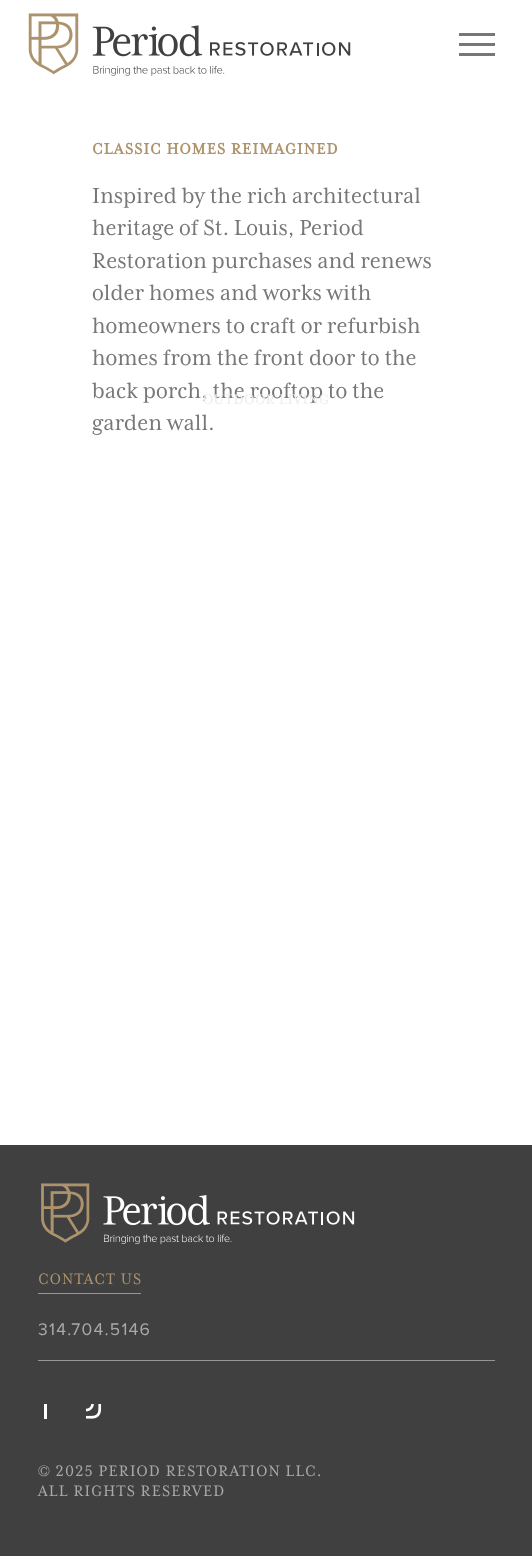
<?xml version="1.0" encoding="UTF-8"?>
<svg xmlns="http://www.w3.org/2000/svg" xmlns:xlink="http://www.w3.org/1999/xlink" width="532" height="1556">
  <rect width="100%" height="100%" fill="#ffffff" />
  <image x="28" y="13" width="323" height="63" xlink:href="image1.png" />
  <rect x="459" y="33" width="36" height="3" fill="#777777" />
  <rect x="459" y="43" width="36" height="3" fill="#777777" />
  <rect x="459" y="53" width="36" height="3" fill="#777777" />
  <rect y="1145" width="532" height="411" fill="#404040" />
  <image x="41" y="1183" width="314" height="62" xlink:href="image2.png" />
  <rect x="38" y="1293" width="103" height="1" fill="#ad936d" />
  <rect x="38" y="1360" width="457" height="1" fill="#939598" />
  <rect x="44" y="1404" width="3" height="15" fill="#ffffff" />
  <image x="86" y="1404" width="16" height="15" xlink:href="image3.png" />
  <text x="92" y="154" style="font-family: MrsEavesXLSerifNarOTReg; font-size: 17.5px; font-weight: bold; letter-spacing: 1.25px; fill: #ad936d">CLASSIC HOMES REIMAGINED</text>
  <text x="92" y="203" style="font-family: MrsEavesXLSerifNarOTReg; font-size: 25px; fill: #777777">Inspired by the rich architectural</text>
  <text x="92" y="235" style="font-family: MrsEavesXLSerifNarOTReg; font-size: 25px; fill: #777777">heritage of St. Louis, Period</text>
  <text x="92" y="268" style="font-family: MrsEavesXLSerifNarOTReg; font-size: 25px; fill: #777777">Restoration purchases and renews</text>
  <text x="92" y="300" style="font-family: MrsEavesXLSerifNarOTReg; font-size: 25px; fill: #777777">older homes and works with</text>
  <text x="92" y="333" style="font-family: MrsEavesXLSerifNarOTReg; font-size: 25px; fill: #777777">homeowners to craft or refurbish</text>
  <text x="92" y="365" style="font-family: MrsEavesXLSerifNarOTReg; font-size: 25px; fill: #777777">homes from the front door to the</text>
  <text x="92" y="398" style="font-family: MrsEavesXLSerifNarOTReg; font-size: 25px; fill: #777777">back porch, the rooftop to the</text>
  <text x="92" y="430" style="font-family: MrsEavesXLSerifNarOTReg; font-size: 25px; fill: #777777">garden wall.</text>
  <text x="203" y="404" style="font-family: MrsEavesXLSerifNarOTReg; font-size: 16px; letter-spacing: 0.6px; fill: #ececec">OUTDOOR LIVING</text>
  <text x="38" y="1284" style="font-family: MrsEavesXLSerifNarOTReg; font-size: 17.5px; letter-spacing: 1.25px; fill: #ad936d">CONTACT US</text>
  <text x="38" y="1335" style="font-family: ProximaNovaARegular; font-size: 17.5px; letter-spacing: 1.25px; fill: #a7a9ac">314.704.5146</text>
  <text x="38" y="1476" style="font-family: MrsEavesXLSerifNarOTReg; font-size: 17.5px; letter-spacing: 1.25px; fill: #a7a9ac">© 2025 PERIOD RESTORATION LLC.</text>
  <text x="38" y="1496" style="font-family: MrsEavesXLSerifNarOTReg; font-size: 17.5px; letter-spacing: 1.25px; fill: #a7a9ac">ALL RIGHTS RESERVED</text>
</svg>
